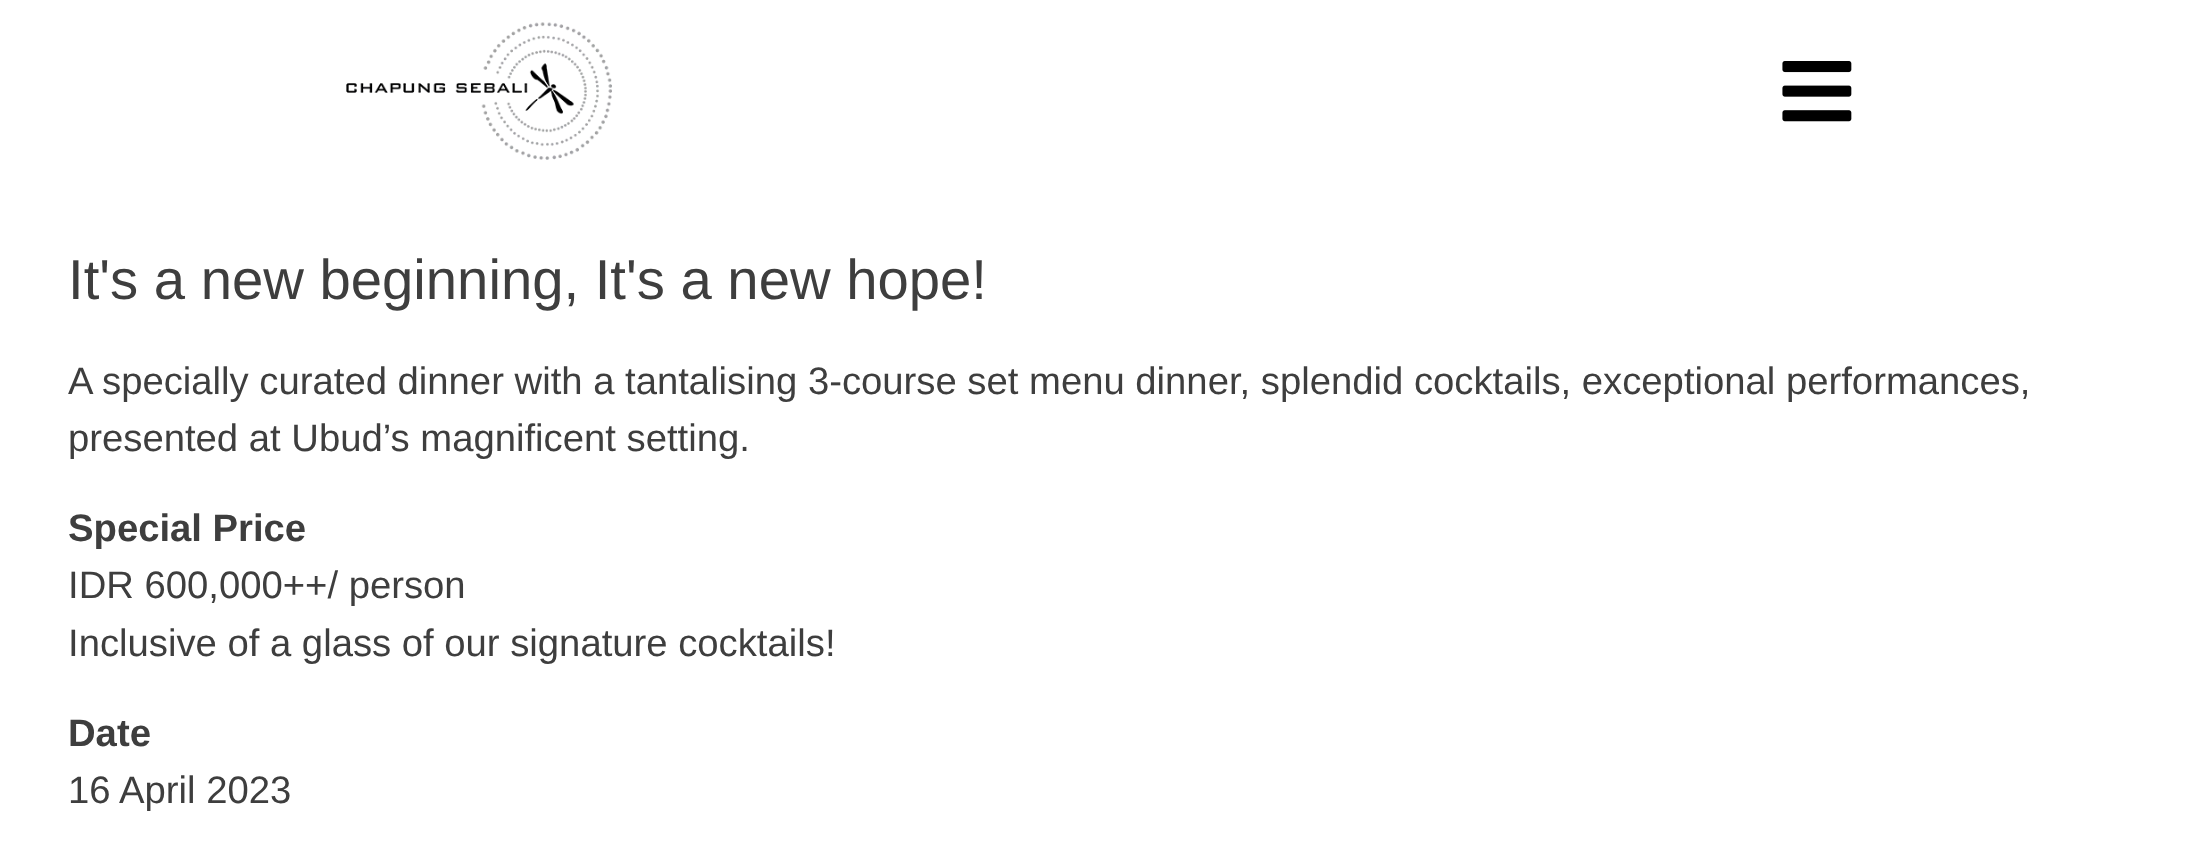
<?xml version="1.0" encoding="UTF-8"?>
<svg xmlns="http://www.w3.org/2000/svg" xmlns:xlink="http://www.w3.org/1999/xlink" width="2204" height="850">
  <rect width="100%" height="100%" fill="#ffffff" />
  <image x="346" y="22" width="266" height="138" xlink:href="image1.png" />
  <image x="1782" y="61" width="70" height="61" xlink:href="image2.png" />
  <text x="68" y="299" style="font-family: Liberation Sans; font-size: 56.25px; fill: #3e3e3e">It's a new beginning, It's a new hope!</text>
  <text x="68" y="394" style="font-family: Liberation Sans; font-size: 38.25px; fill: #3e3e3e">A specially curated dinner with a tantalising 3-course set menu dinner, splendid cocktails, exceptional performances,</text>
  <text x="68" y="451" style="font-family: Liberation Sans; font-size: 38.25px; fill: #3e3e3e">presented at Ubud’s magnificent setting.</text>
  <text x="68" y="541" style="font-family: Liberation Sans; font-size: 38.25px; font-weight: bold; fill: #3e3e3e">Special Price</text>
  <text x="68" y="598" style="font-family: Liberation Sans; font-size: 38.25px; fill: #3e3e3e">IDR 600,000++/ person</text>
  <text x="68" y="656" style="font-family: Liberation Sans; font-size: 38.25px; fill: #3e3e3e">Inclusive of a glass of our signature cocktails!</text>
  <text x="68" y="746" style="font-family: Liberation Sans; font-size: 38.25px; font-weight: bold; fill: #3e3e3e">Date</text>
  <text x="68" y="803" style="font-family: Liberation Sans; font-size: 38.25px; fill: #3e3e3e">16 April 2023</text>
</svg>
